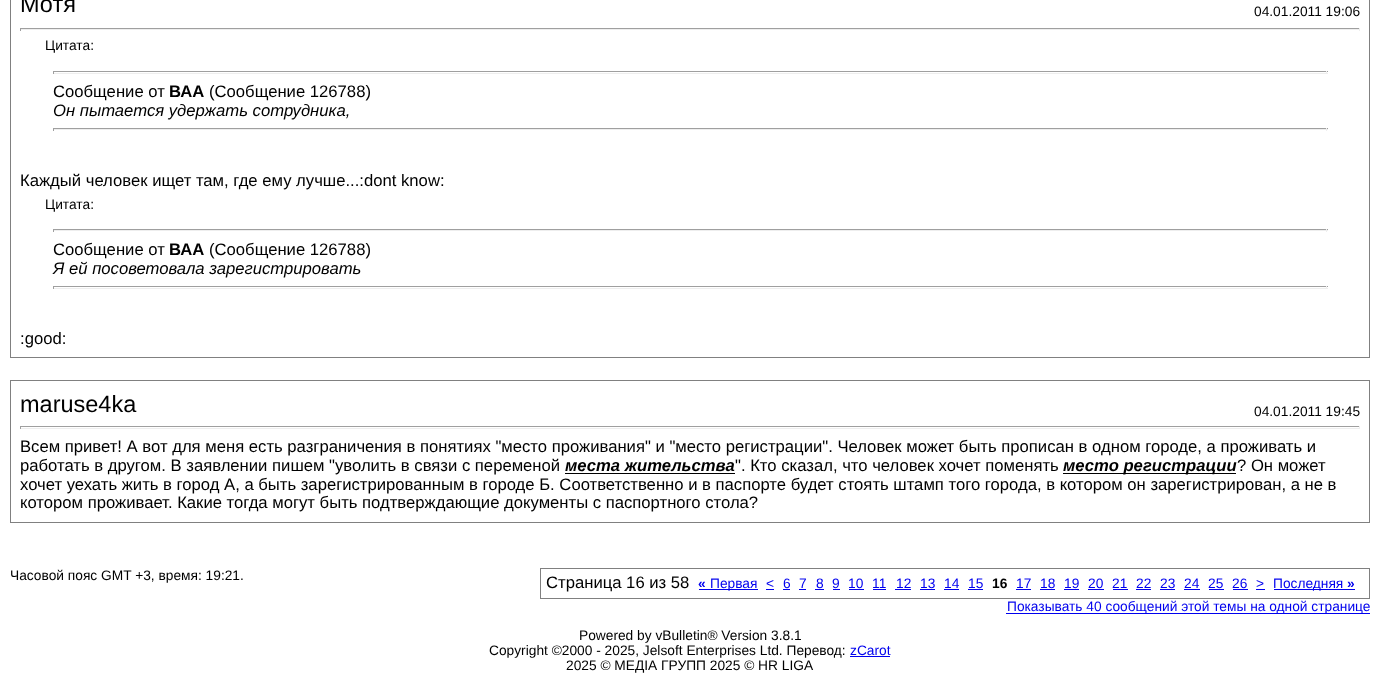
<?xml version="1.0" encoding="UTF-8"?>
<svg xmlns="http://www.w3.org/2000/svg" xmlns:xlink="http://www.w3.org/1999/xlink" width="1379" height="677">
  <rect width="100%" height="100%" fill="#ffffff" />
  <rect x="10.5" y="-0.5" width="1359" height="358" fill="none" stroke="#808080" />
  <rect x="20" y="28" width="1340" height="1" fill="#9f9f9f" />
  <rect x="1359" y="28" width="1" height="3" fill="#eeeeee" />
  <rect x="20" y="29" width="1340" height="1" fill="#eeeeee" />
  <rect x="20" y="28" width="1" height="3" fill="#9f9f9f" />
  <rect x="53" y="71" width="1275" height="1" fill="#9f9f9f" />
  <rect x="1326" y="71" width="1" height="3" fill="#eeeeee" />
  <rect x="53" y="73" width="1275" height="1" fill="#eeeeee" />
  <rect x="53" y="71" width="1" height="3" fill="#9f9f9f" />
  <rect x="53" y="128" width="1275" height="1" fill="#9f9f9f" />
  <rect x="1326" y="128" width="1" height="3" fill="#eeeeee" />
  <rect x="53" y="129" width="1275" height="1" fill="#eeeeee" />
  <rect x="53" y="128" width="1" height="3" fill="#9f9f9f" />
  <rect x="53" y="229" width="1275" height="1" fill="#9f9f9f" />
  <rect x="1326" y="229" width="1" height="3" fill="#eeeeee" />
  <rect x="53" y="230" width="1275" height="1" fill="#eeeeee" />
  <rect x="53" y="229" width="1" height="3" fill="#9f9f9f" />
  <rect x="53" y="286" width="1275" height="1" fill="#9f9f9f" />
  <rect x="1326" y="286" width="1" height="3" fill="#eeeeee" />
  <rect x="53" y="288" width="1275" height="1" fill="#eeeeee" />
  <rect x="53" y="286" width="1" height="3" fill="#9f9f9f" />
  <rect x="10.5" y="380.5" width="1359" height="142" fill="none" stroke="#808080" />
  <rect x="20" y="426" width="1340" height="1" fill="#9f9f9f" />
  <rect x="1359" y="426" width="1" height="3" fill="#eeeeee" />
  <rect x="20" y="428" width="1340" height="1" fill="#eeeeee" />
  <rect x="20" y="426" width="1" height="3" fill="#9f9f9f" />
  <rect x="565" y="473" width="170" height="1" fill="#000000" />
  <rect x="1063" y="473" width="173" height="1" fill="#000000" />
  <rect x="540.5" y="568.5" width="829" height="30" fill="none" stroke="#808080" />
  <rect x="699" y="589" width="59" height="1" fill="#0000ee" />
  <rect x="766" y="589" width="8" height="1" fill="#0000ee" />
  <rect x="783" y="589" width="7" height="1" fill="#0000ee" />
  <rect x="799" y="589" width="7" height="1" fill="#0000ee" />
  <rect x="815" y="589" width="9" height="1" fill="#0000ee" />
  <rect x="833" y="589" width="7" height="1" fill="#0000ee" />
  <rect x="849" y="589" width="15" height="1" fill="#0000ee" />
  <rect x="873" y="589" width="13" height="1" fill="#0000ee" />
  <rect x="895" y="589" width="16" height="1" fill="#0000ee" />
  <rect x="920" y="589" width="15" height="1" fill="#0000ee" />
  <rect x="944" y="589" width="15" height="1" fill="#0000ee" />
  <rect x="968" y="589" width="15" height="1" fill="#0000ee" />
  <rect x="1016" y="589" width="15" height="1" fill="#0000ee" />
  <rect x="1040" y="589" width="15" height="1" fill="#0000ee" />
  <rect x="1064" y="589" width="15" height="1" fill="#0000ee" />
  <rect x="1088" y="589" width="16" height="1" fill="#0000ee" />
  <rect x="1113" y="589" width="15" height="1" fill="#0000ee" />
  <rect x="1136" y="589" width="15" height="1" fill="#0000ee" />
  <rect x="1160" y="589" width="15" height="1" fill="#0000ee" />
  <rect x="1184" y="589" width="16" height="1" fill="#0000ee" />
  <rect x="1209" y="589" width="15" height="1" fill="#0000ee" />
  <rect x="1233" y="589" width="15" height="1" fill="#0000ee" />
  <rect x="1256" y="589" width="9" height="1" fill="#0000ee" />
  <rect x="1274" y="589" width="81" height="1" fill="#0000ee" />
  <rect x="1006" y="613" width="364" height="1" fill="#0000ee" />
  <rect x="850" y="656" width="40" height="1" fill="#0000ee" />
  <text x="20" y="12" style="font-family: Liberation Sans; font-size: 23.5px; fill: #000000">Мотя</text>
  <text x="1254" y="16" style="font-family: Liberation Sans; font-size: 13.75px; fill: #000000">04.01.2011 19:06</text>
  <text x="45" y="50" style="font-family: Liberation Sans; font-size: 13.75px; fill: #000000">Цитата:</text>
  <text x="53" y="97" style="font-family: Liberation Sans; font-size: 16.67px; fill: #000000">Сообщение от</text>
  <text x="169" y="97" style="font-family: Liberation Sans; font-size: 16.67px; font-weight: bold; fill: #000000">ВАА</text>
  <text x="209" y="97" style="font-family: Liberation Sans; font-size: 16.67px; fill: #000000">(Сообщение 126788)</text>
  <text x="53" y="116" style="font-family: Liberation Sans; font-size: 16.67px; font-style: italic; fill: #000000">Он пытается удержать сотрудника,</text>
  <text x="20" y="186" style="font-family: Liberation Sans; font-size: 16.67px; fill: #000000">Каждый человек ищет там, где ему лучше...:dont know:</text>
  <text x="45" y="209" style="font-family: Liberation Sans; font-size: 13.75px; fill: #000000">Цитата:</text>
  <text x="53" y="255" style="font-family: Liberation Sans; font-size: 16.67px; fill: #000000">Сообщение от</text>
  <text x="169" y="255" style="font-family: Liberation Sans; font-size: 16.67px; font-weight: bold; fill: #000000">ВАА</text>
  <text x="209" y="255" style="font-family: Liberation Sans; font-size: 16.67px; fill: #000000">(Сообщение 126788)</text>
  <text x="53" y="274" style="font-family: Liberation Sans; font-size: 16.67px; font-style: italic; fill: #000000">Я ей посоветовала зарегистрировать</text>
  <text x="20" y="344" style="font-family: Liberation Sans; font-size: 16.67px; fill: #000000">:good:</text>
  <text x="20" y="412" style="font-family: Liberation Sans; font-size: 23.5px; fill: #000000">maruse4ka</text>
  <text x="1254" y="416" style="font-family: Liberation Sans; font-size: 13.75px; fill: #000000">04.01.2011 19:45</text>
  <text x="20" y="452" style="font-family: Liberation Sans; font-size: 16.67px; fill: #000000">Всем привет! А вот для меня есть разграничения в понятиях "место проживания" и "место регистрации". Человек может быть прописан в одном городе, а проживать и</text>
  <text x="20" y="471" style="font-family: Liberation Sans; font-size: 16.67px; fill: #000000">работать в другом. В заявлении пишем "уволить в связи с переменой</text>
  <text x="565" y="471" style="font-family: Liberation Sans; font-size: 16.67px; font-weight: bold; font-style: italic; fill: #000000">места жительства</text>
  <text x="735" y="471" style="font-family: Liberation Sans; font-size: 16.67px; fill: #000000">". Кто сказал, что человек хочет поменять</text>
  <text x="1063" y="471" style="font-family: Liberation Sans; font-size: 16.67px; font-weight: bold; font-style: italic; fill: #000000">место регистрации</text>
  <text x="1237" y="471" style="font-family: Liberation Sans; font-size: 16.67px; fill: #000000">? Он может</text>
  <text x="20" y="490" style="font-family: Liberation Sans; font-size: 16.67px; fill: #000000">хочет уехать жить в город А, а быть зарегистрированным в городе Б. Соответственно и в паспорте будет стоять штамп того города, в котором он зарегистрирован, а не в</text>
  <text x="20" y="508" style="font-family: Liberation Sans; font-size: 16.67px; fill: #000000">котором проживает. Какие тогда могут быть подтверждающие документы с паспортного стола?</text>
  <text x="10" y="580" style="font-family: Liberation Sans; font-size: 13.75px; fill: #000000">Часовой пояс GMT +3, время: 19:21.</text>
  <text x="546" y="588" style="font-family: Liberation Sans; font-size: 16.67px; fill: #000000">Страница 16 из 58</text>
  <text x="698" y="588" style="font-family: Liberation Sans; font-size: 13.75px; font-weight: bold; fill: #0000ee">«</text>
  <text x="710" y="588" style="font-family: Liberation Sans; font-size: 13.75px; fill: #0000ee">Первая</text>
  <text x="766" y="588" style="font-family: Liberation Sans; font-size: 13.75px; fill: #0000ee">&lt;</text>
  <text x="783" y="588" style="font-family: Liberation Sans; font-size: 13.75px; fill: #0000ee">6</text>
  <text x="799" y="588" style="font-family: Liberation Sans; font-size: 13.75px; fill: #0000ee">7</text>
  <text x="816" y="588" style="font-family: Liberation Sans; font-size: 13.75px; fill: #0000ee">8</text>
  <text x="832" y="588" style="font-family: Liberation Sans; font-size: 13.75px; fill: #0000ee">9</text>
  <text x="848" y="588" style="font-family: Liberation Sans; font-size: 13.75px; fill: #0000ee">10</text>
  <text x="872" y="588" style="font-family: Liberation Sans; font-size: 13.75px; fill: #0000ee">11</text>
  <text x="896" y="588" style="font-family: Liberation Sans; font-size: 13.75px; fill: #0000ee">12</text>
  <text x="920" y="588" style="font-family: Liberation Sans; font-size: 13.75px; fill: #0000ee">13</text>
  <text x="944" y="588" style="font-family: Liberation Sans; font-size: 13.75px; fill: #0000ee">14</text>
  <text x="968" y="588" style="font-family: Liberation Sans; font-size: 13.75px; fill: #0000ee">15</text>
  <text x="992" y="588" style="font-family: Liberation Sans; font-size: 13.75px; font-weight: bold; fill: #000000">16</text>
  <text x="1016" y="588" style="font-family: Liberation Sans; font-size: 13.75px; fill: #0000ee">17</text>
  <text x="1040" y="588" style="font-family: Liberation Sans; font-size: 13.75px; fill: #0000ee">18</text>
  <text x="1064" y="588" style="font-family: Liberation Sans; font-size: 13.75px; fill: #0000ee">19</text>
  <text x="1088" y="588" style="font-family: Liberation Sans; font-size: 13.75px; fill: #0000ee">20</text>
  <text x="1112" y="588" style="font-family: Liberation Sans; font-size: 13.75px; fill: #0000ee">21</text>
  <text x="1136" y="588" style="font-family: Liberation Sans; font-size: 13.75px; fill: #0000ee">22</text>
  <text x="1160" y="588" style="font-family: Liberation Sans; font-size: 13.75px; fill: #0000ee">23</text>
  <text x="1184" y="588" style="font-family: Liberation Sans; font-size: 13.75px; fill: #0000ee">24</text>
  <text x="1208" y="588" style="font-family: Liberation Sans; font-size: 13.75px; fill: #0000ee">25</text>
  <text x="1232" y="588" style="font-family: Liberation Sans; font-size: 13.75px; fill: #0000ee">26</text>
  <text x="1256" y="588" style="font-family: Liberation Sans; font-size: 13.75px; fill: #0000ee">&gt;</text>
  <text x="1273" y="588" style="font-family: Liberation Sans; font-size: 13.75px; fill: #0000ee">Последняя</text>
  <text x="1347" y="588" style="font-family: Liberation Sans; font-size: 13.75px; font-weight: bold; fill: #0000ee">»</text>
  <text x="1007" y="611" style="font-family: Liberation Sans; font-size: 13.75px; fill: #0000ee">Показывать 40 сообщений этой темы на одной странице</text>
  <text x="579" y="640" style="font-family: Liberation Sans; font-size: 13.75px; fill: #000000">Powered by vBulletin® Version 3.8.1</text>
  <text x="489" y="655" style="font-family: Liberation Sans; font-size: 13.75px; fill: #000000">Copyright ©2000 - 2025, Jelsoft Enterprises Ltd. Перевод:</text>
  <text x="850" y="655" style="font-family: Liberation Sans; font-size: 13.75px; fill: #0000ee">zCarot</text>
  <text x="566" y="670" style="font-family: Liberation Sans; font-size: 13.75px; fill: #000000">2025 © МЕДІА ГРУПП 2025 © HR LIGA</text>
</svg>
